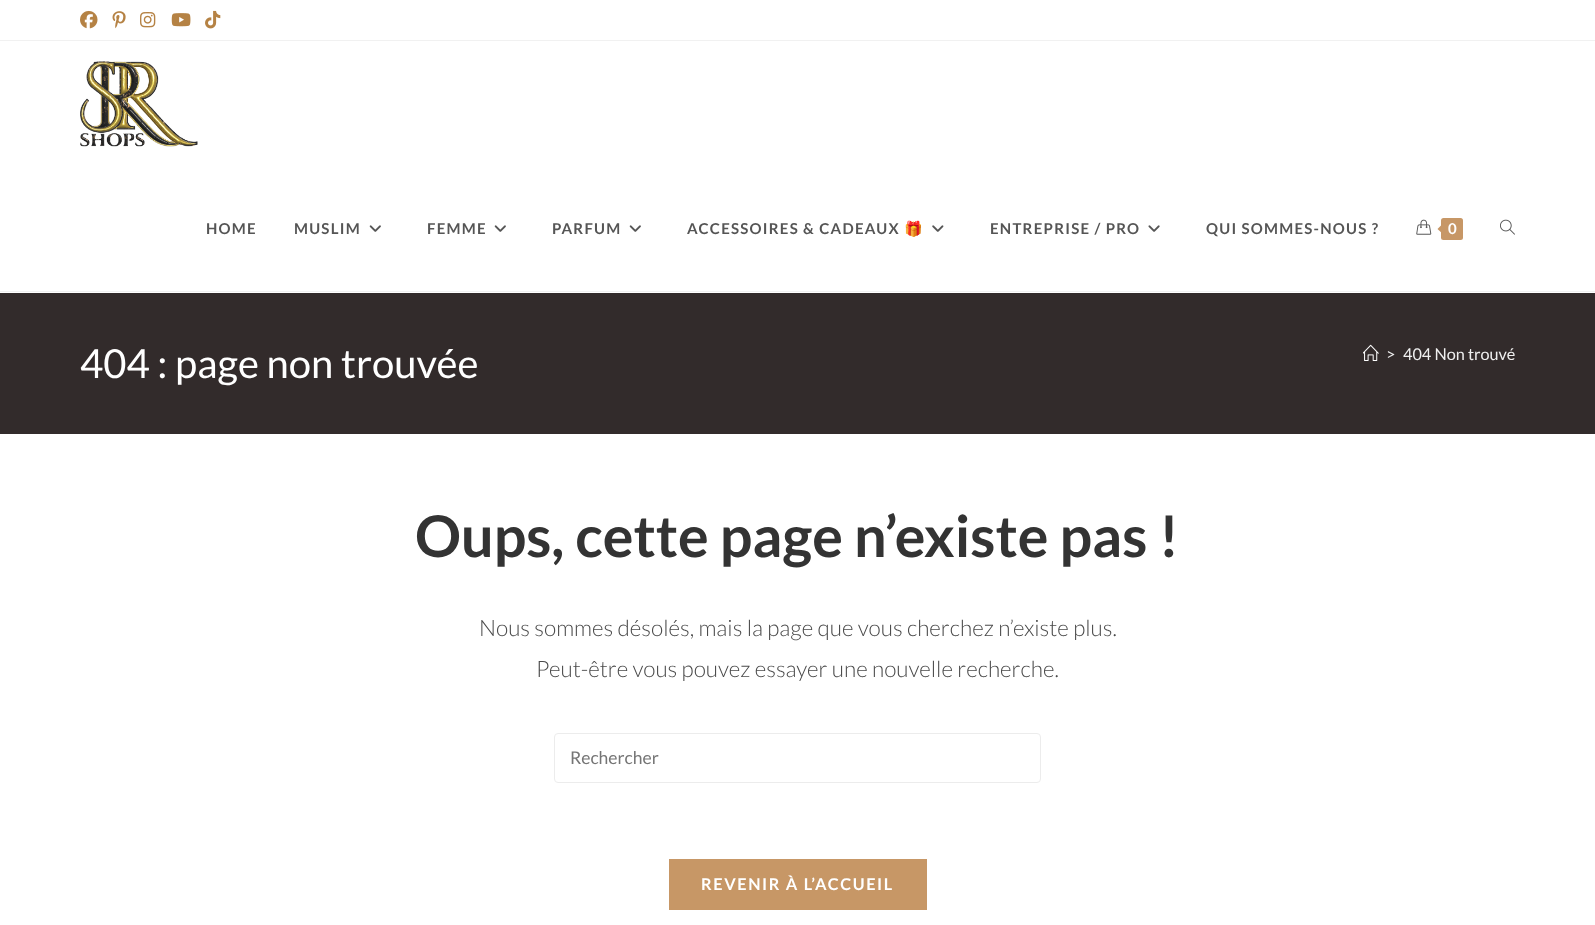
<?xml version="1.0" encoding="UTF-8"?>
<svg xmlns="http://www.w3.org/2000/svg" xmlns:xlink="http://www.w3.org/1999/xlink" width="1595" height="925">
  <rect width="100%" height="100%" fill="#ffffff" />
  <rect y="40" width="1595" height="1" fill="#f1f1f1" />
  <image x="80" y="10" width="18" height="19" xlink:href="image1.png" />
  <image x="112" y="11" width="14" height="18" xlink:href="image2.png" />
  <image x="140" y="12" width="16" height="16" xlink:href="image3.png" />
  <image x="171" y="13" width="20" height="14" xlink:href="image4.png" />
  <image x="205" y="10" width="16" height="19" xlink:href="image5.png" />
  <rect y="291" width="1595" height="1" fill="#f1f1f1" />
  <image x="80" y="61" width="118" height="86" xlink:href="image6.png" />
  <image x="369" y="225" width="12" height="7" xlink:href="image7.png" />
  <image x="494" y="225" width="12" height="7" xlink:href="image7.png" />
  <image x="629" y="225" width="12" height="7" xlink:href="image7.png" />
  <image x="932" y="225" width="12" height="7" xlink:href="image8.png" />
  <image x="1148" y="225" width="12" height="7" xlink:href="image9.png" />
  <image x="1416" y="219" width="16" height="16" xlink:href="image10.png" />
  <rect x="1441" y="218" width="22" height="22" rx="2.5" fill="#c79766" />
  <path d="M 1444 222.5 v 12.5 l -6.5 -6 z" fill="#c79766" />
  <image x="1500" y="219" width="15" height="16" xlink:href="image11.png" />
  <rect y="293" width="1595" height="141" fill="#322b2b" />
  <image x="1363" y="344" width="16" height="17" xlink:href="image12.png" />
  <rect x="554.5" y="733.5" width="486" height="49" rx="3.5" fill="none" stroke="#ececec" />
  <rect x="669" y="859" width="258" height="51" fill="#c79766" />
  <text x="206" y="234" style="font-family: Lato; font-size: 15px; font-weight: bold; letter-spacing: 1.25px; fill: #555555">HOME</text>
  <text x="294" y="234" style="font-family: Lato; font-size: 15px; font-weight: bold; letter-spacing: 1.25px; fill: #555555">MUSLIM</text>
  <text x="427" y="234" style="font-family: Lato; font-size: 15px; font-weight: bold; letter-spacing: 1.25px; fill: #555555">FEMME</text>
  <text x="552" y="234" style="font-family: Lato; font-size: 15px; font-weight: bold; letter-spacing: 1.25px; fill: #555555">PARFUM</text>
  <text x="687" y="234" style="font-family: Lato; font-size: 15px; font-weight: bold; letter-spacing: 1.25px; fill: #555555">ACCESSOIRES &amp; CADEAUX</text>
  <text x="904" y="234" style="font-family: Noto Color Emoji; font-size: 15px; font-weight: bold; letter-spacing: 1.25px; fill: #555555">🎁</text>
  <text x="990" y="234" style="font-family: Lato; font-size: 15px; font-weight: bold; letter-spacing: 1.25px; fill: #555555">ENTREPRISE / PRO</text>
  <text x="1206" y="234" style="font-family: Lato; font-size: 15px; font-weight: bold; letter-spacing: 1.25px; fill: #555555">QUI SOMMES-NOUS ?</text>
  <text x="1448" y="234" style="font-family: Lato; font-size: 15px; font-weight: bold; fill: #ffffff">0</text>
  <text x="80" y="378" style="font-family: Lato; font-size: 40px; fill: #ffffff">404 : page non trouvée</text>
  <text x="1386" y="360" style="font-family: Lato; font-size: 16.25px; fill: #efefef">&gt;</text>
  <text x="1403" y="360" style="font-family: Lato; font-size: 16.25px; fill: #efefef">404 Non trouvé</text>
  <text x="415" y="557" style="font-family: Lato; font-size: 57.5px; font-weight: bold; fill: #333333">Oups, cette page n’existe pas !</text>
  <text x="479" y="636" style="font-family: Lato; font-size: 22.5px; font-weight: 300; fill: #4a4a4a">Nous sommes désolés, mais la page que vous cherchez n’existe plus.</text>
  <text x="536" y="677" style="font-family: Lato; font-size: 22.5px; font-weight: 300; fill: #4a4a4a">Peut-être vous pouvez essayer une nouvelle recherche.</text>
  <text x="570" y="764" style="font-family: Lato; font-size: 17.5px; fill: #757575">Rechercher</text>
  <text x="701" y="890" style="font-family: Lato; font-size: 16.25px; font-weight: bold; letter-spacing: 1.6px; fill: #ffffff">REVENIR À L’ACCUEIL</text>
</svg>
